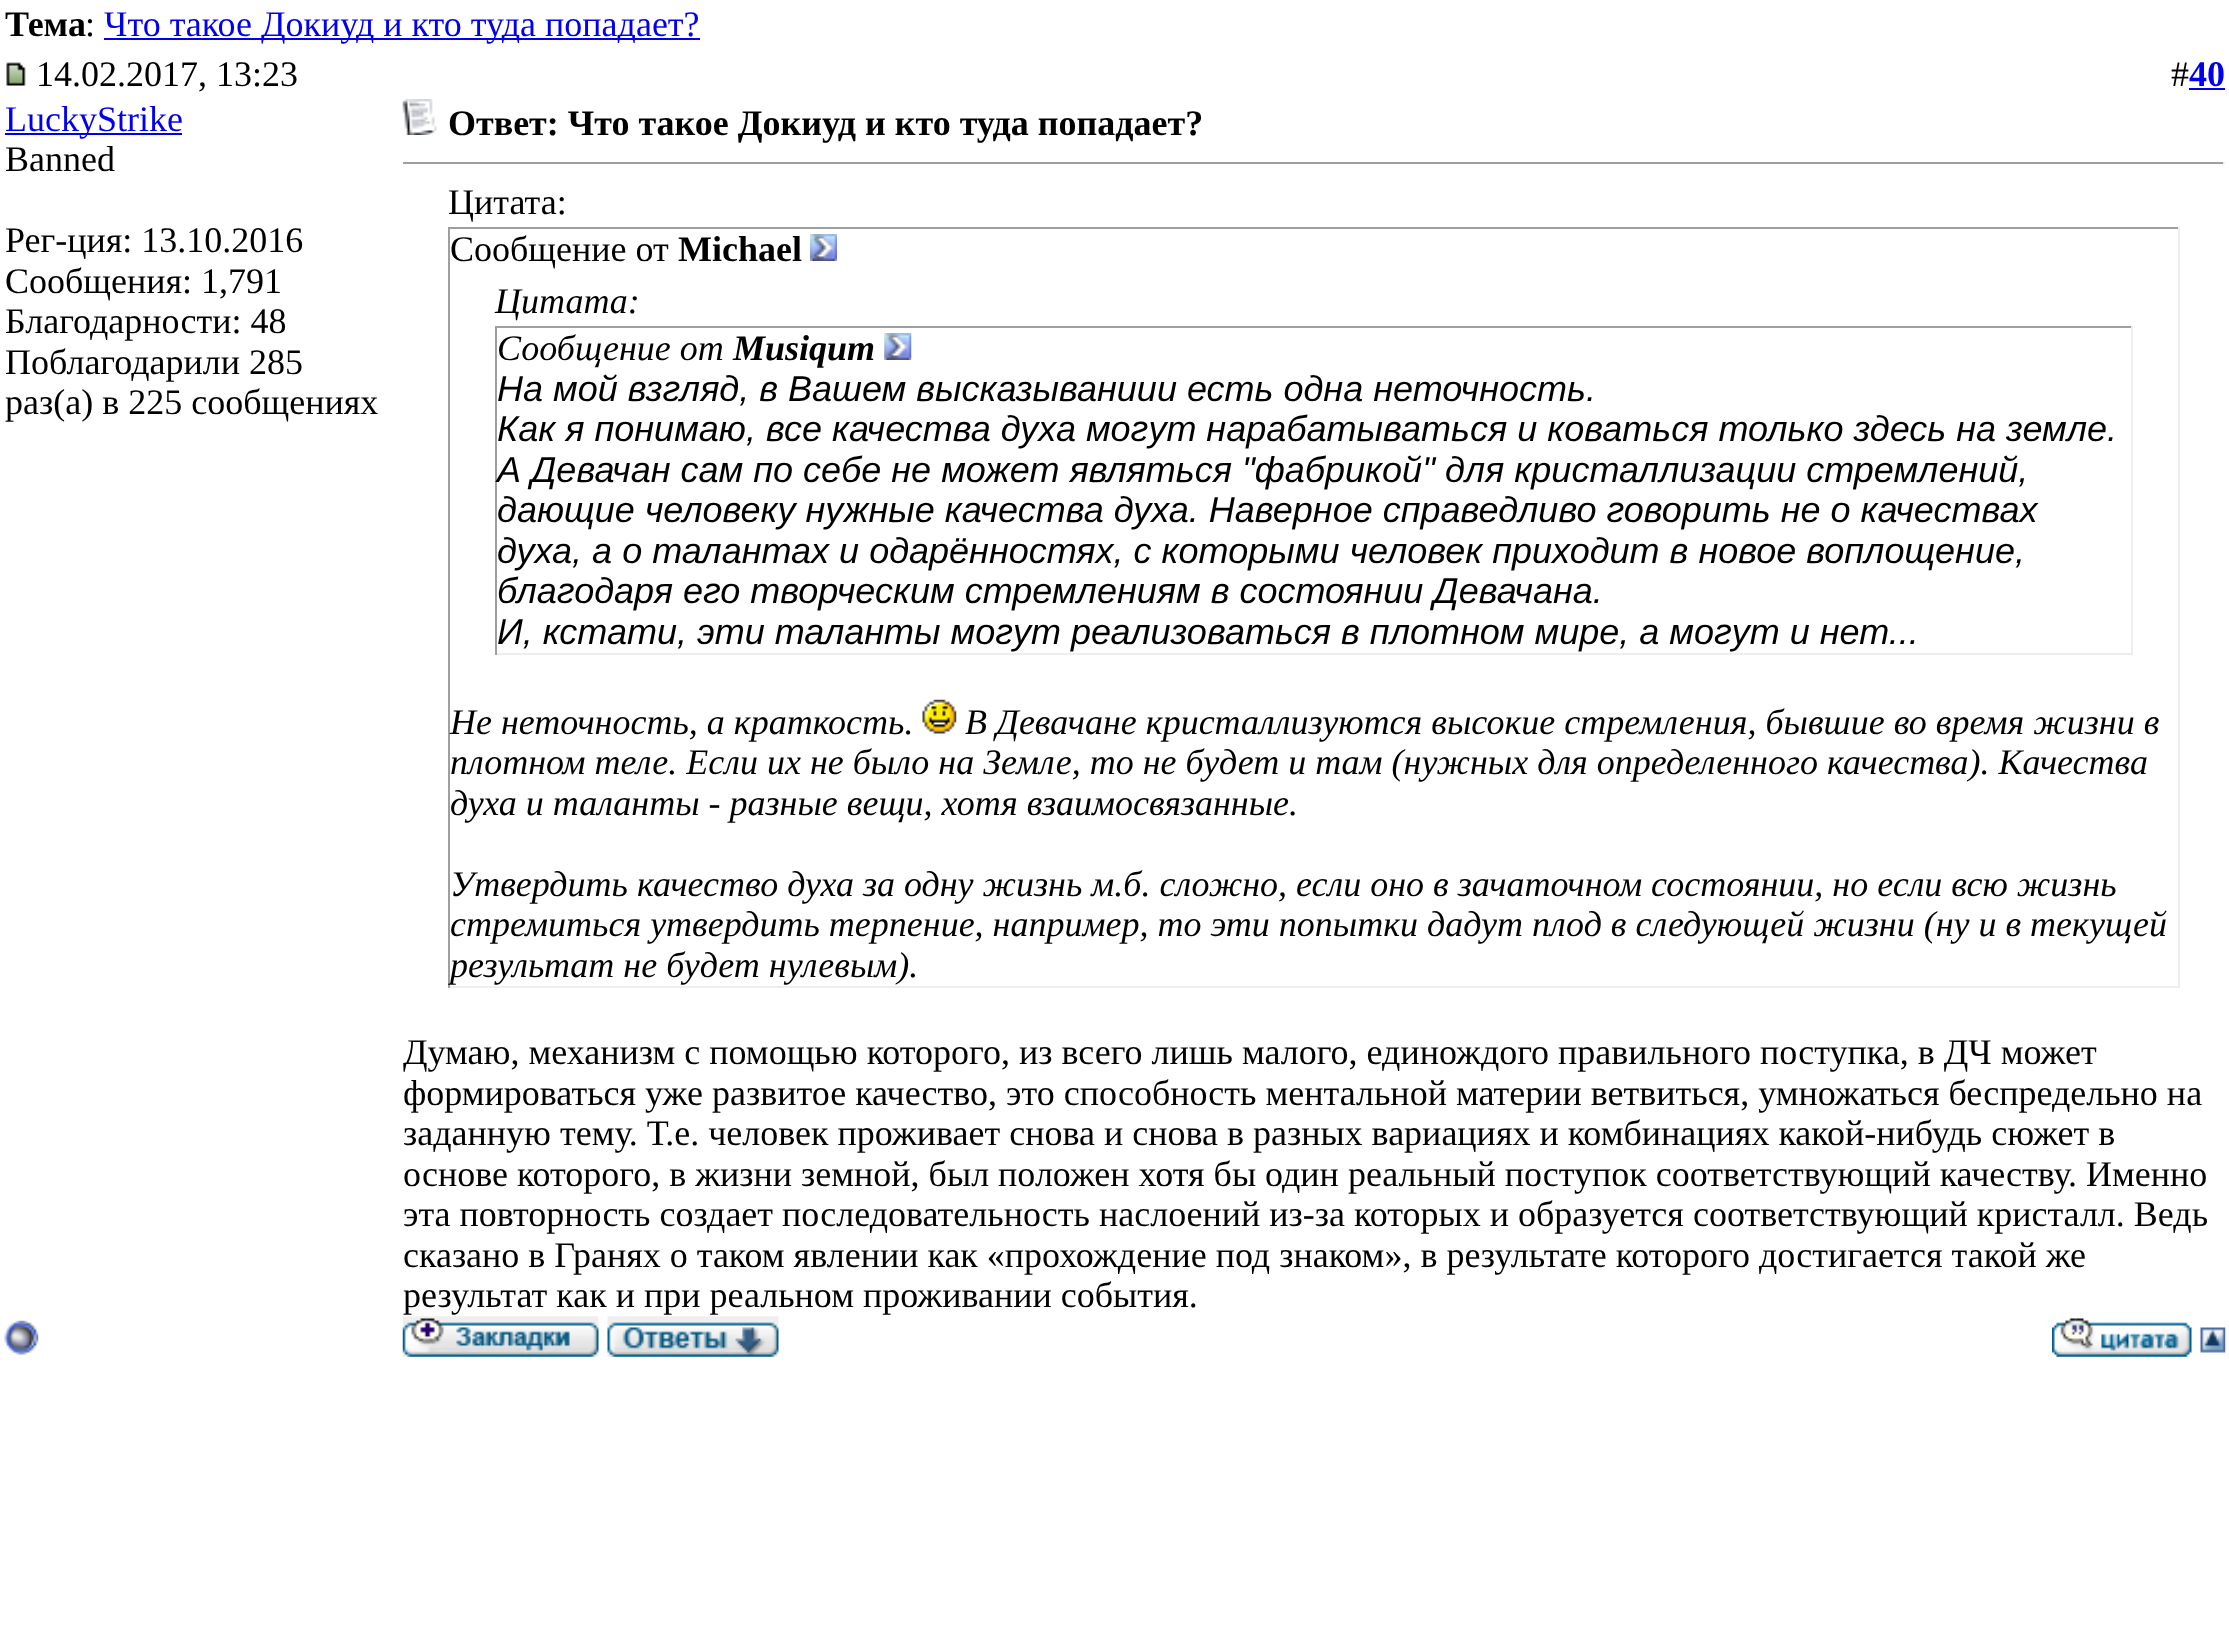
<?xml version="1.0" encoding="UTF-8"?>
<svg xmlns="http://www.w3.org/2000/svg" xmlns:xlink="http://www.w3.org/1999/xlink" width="2229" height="1627">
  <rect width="100%" height="100%" fill="#ffffff" />
  <rect x="104" y="38" width="596" height="2" fill="#0000ee" />
  <image x="6" y="62" width="20" height="24" xlink:href="image1.png" />
  <rect x="2189" y="88" width="36" height="2" fill="#0000ee" />
  <rect x="5" y="133" width="177" height="2" fill="#0000ee" />
  <image x="402" y="99" width="35" height="36" xlink:href="image2.png" />
  <rect x="403" y="162" width="1822" height="2" fill="#9f9f9f" />
  <rect x="2223" y="162" width="2" height="2" fill="#eeeeee" />
  <rect x="448" y="227" width="1732" height="2" fill="#9f9f9f" />
  <rect x="2178" y="227" width="2" height="761" fill="#eeeeee" />
  <rect x="448" y="986" width="1732" height="2" fill="#eeeeee" />
  <rect x="448" y="227" width="2" height="761" fill="#9f9f9f" />
  <image x="810" y="234" width="27" height="27" xlink:href="image3.png" />
  <rect x="495" y="326" width="1638" height="2" fill="#9f9f9f" />
  <rect x="2131" y="326" width="2" height="329" fill="#eeeeee" />
  <rect x="495" y="653" width="1638" height="2" fill="#eeeeee" />
  <rect x="495" y="326" width="2" height="329" fill="#9f9f9f" />
  <image x="884" y="333" width="28" height="27" xlink:href="image4.png" />
  <image x="922" y="699" width="35" height="35" xlink:href="image5.png" />
  <image x="4" y="1320" width="35" height="35" xlink:href="image6.png" />
  <image x="402" y="1316" width="197" height="41" xlink:href="image7.png" />
  <image x="607" y="1316" width="172" height="41" xlink:href="image8.png" />
  <image x="2052" y="1318" width="140" height="39" xlink:href="image9.png" />
  <image x="2200" y="1327" width="26" height="26" xlink:href="image10.png" />
  <text x="5" y="36" style="font-family: Liberation Serif; font-size: 36px; font-weight: bold; fill: #000000">Тема</text>
  <text x="85" y="36" style="font-family: Liberation Serif; font-size: 36px; fill: #000000">:</text>
  <text x="104" y="36" style="font-family: Liberation Serif; font-size: 36px; fill: #0000ee">Что такое Докиуд и кто туда попадает?</text>
  <text x="36" y="86" style="font-family: Liberation Serif; font-size: 36px; fill: #000000">14.02.2017, 13:23</text>
  <text x="2171" y="86" style="font-family: Liberation Serif; font-size: 36px; fill: #000000">#</text>
  <text x="2189" y="86" style="font-family: Liberation Serif; font-size: 36px; font-weight: bold; fill: #0000ee">40</text>
  <text x="5" y="131" style="font-family: Liberation Serif; font-size: 36px; fill: #0000ee">LuckyStrike</text>
  <text x="5" y="171" style="font-family: Liberation Serif; font-size: 36px; fill: #000000">Banned</text>
  <text x="5" y="252" style="font-family: Liberation Serif; font-size: 36px; fill: #000000">Рег-ция: 13.10.2016</text>
  <text x="5" y="293" style="font-family: Liberation Serif; font-size: 36px; fill: #000000">Сообщения: 1,791</text>
  <text x="5" y="333" style="font-family: Liberation Serif; font-size: 36px; fill: #000000">Благодарности: 48</text>
  <text x="5" y="374" style="font-family: Liberation Serif; font-size: 36px; fill: #000000">Поблагодарили 285</text>
  <text x="5" y="414" style="font-family: Liberation Serif; font-size: 36px; fill: #000000">раз(а) в 225 сообщениях</text>
  <text x="448" y="135" style="font-family: Liberation Serif; font-size: 36px; font-weight: bold; fill: #000000">Ответ: Что такое Докиуд и кто туда попадает?</text>
  <text x="448" y="214" style="font-family: Liberation Serif; font-size: 36px; fill: #000000">Цитата:</text>
  <text x="450" y="261" style="font-family: Liberation Serif; font-size: 36px; fill: #000000">Сообщение от</text>
  <text x="678" y="261" style="font-family: Liberation Serif; font-size: 36px; font-weight: bold; fill: #000000">Michael</text>
  <text x="495" y="313" style="font-family: Liberation Serif; font-size: 36px; font-style: italic; fill: #000000">Цитата:</text>
  <text x="497" y="360" style="font-family: Liberation Serif; font-size: 36px; font-style: italic; fill: #000000">Сообщение от</text>
  <text x="733" y="360" style="font-family: Liberation Serif; font-size: 36px; font-weight: bold; font-style: italic; fill: #000000">Musiqum</text>
  <text x="497" y="401" style="font-family: Liberation Sans; font-size: 36px; font-style: italic; fill: #000000">На мой взгляд, в Вашем высказываниии есть одна неточность.</text>
  <text x="497" y="441" style="font-family: Liberation Sans; font-size: 36px; font-style: italic; fill: #000000">Как я понимаю, все качества духа могут нарабатываться и коваться только здесь на земле.</text>
  <text x="497" y="482" style="font-family: Liberation Sans; font-size: 36px; font-style: italic; fill: #000000">А Девачан сам по себе не может являться "фабрикой" для кристаллизации стремлений,</text>
  <text x="497" y="522" style="font-family: Liberation Sans; font-size: 36px; font-style: italic; fill: #000000">дающие человеку нужные качества духа. Наверное справедливо говорить не о качествах</text>
  <text x="497" y="563" style="font-family: Liberation Sans; font-size: 36px; font-style: italic; fill: #000000">духа, а о талантах и одарённостях, с которыми человек приходит в новое воплощение,</text>
  <text x="497" y="603" style="font-family: Liberation Sans; font-size: 36px; font-style: italic; fill: #000000">благодаря его творческим стремлениям в состоянии Девачана.</text>
  <text x="497" y="644" style="font-family: Liberation Sans; font-size: 36px; font-style: italic; fill: #000000">И, кстати, эти таланты могут реализоваться в плотном мире, а могут и нет...</text>
  <text x="450" y="734" style="font-family: Liberation Serif; font-size: 36px; font-style: italic; fill: #000000">Не неточность, а краткость.</text>
  <text x="965" y="734" style="font-family: Liberation Serif; font-size: 36px; font-style: italic; fill: #000000">В Девачане кристаллизуются высокие стремления, бывшие во время жизни в</text>
  <text x="450" y="774" style="font-family: Liberation Serif; font-size: 36px; font-style: italic; fill: #000000">плотном теле. Если их не было на Земле, то не будет и там (нужных для определенного качества). Качества</text>
  <text x="450" y="815" style="font-family: Liberation Serif; font-size: 36px; font-style: italic; fill: #000000">духа и таланты - разные вещи, хотя взаимосвязанные.</text>
  <text x="450" y="896" style="font-family: Liberation Serif; font-size: 36px; font-style: italic; fill: #000000">Утвердить качество духа за одну жизнь м.б. сложно, если оно в зачаточном состоянии, но если всю жизнь</text>
  <text x="450" y="936" style="font-family: Liberation Serif; font-size: 36px; font-style: italic; fill: #000000">стремиться утвердить терпение, например, то эти попытки дадут плод в следующей жизни (ну и в текущей</text>
  <text x="450" y="977" style="font-family: Liberation Serif; font-size: 36px; font-style: italic; fill: #000000">результат не будет нулевым).</text>
  <text x="403" y="1064" style="font-family: Liberation Serif; font-size: 36px; fill: #000000">Думаю, механизм с помощью которого, из всего лишь малого, единождого правильного поступка, в ДЧ может</text>
  <text x="403" y="1105" style="font-family: Liberation Serif; font-size: 36px; fill: #000000">формироваться уже развитое качество, это способность ментальной материи ветвиться, умножаться беспредельно на</text>
  <text x="403" y="1145" style="font-family: Liberation Serif; font-size: 36px; fill: #000000">заданную тему. Т.е. человек проживает снова и снова в разных вариациях и комбинациях какой-нибудь сюжет в</text>
  <text x="403" y="1186" style="font-family: Liberation Serif; font-size: 36px; fill: #000000">основе которого, в жизни земной, был положен хотя бы один реальный поступок соответствующий качеству. Именно</text>
  <text x="403" y="1226" style="font-family: Liberation Serif; font-size: 36px; fill: #000000">эта повторность создает последовательность наслоений из-за которых и образуется соответствующий кристалл. Ведь</text>
  <text x="403" y="1267" style="font-family: Liberation Serif; font-size: 36px; fill: #000000">сказано в Гранях о таком явлении как «прохождение под знаком», в результате которого достигается такой же</text>
  <text x="403" y="1307" style="font-family: Liberation Serif; font-size: 36px; fill: #000000">результат как и при реальном проживании события.</text>
</svg>
